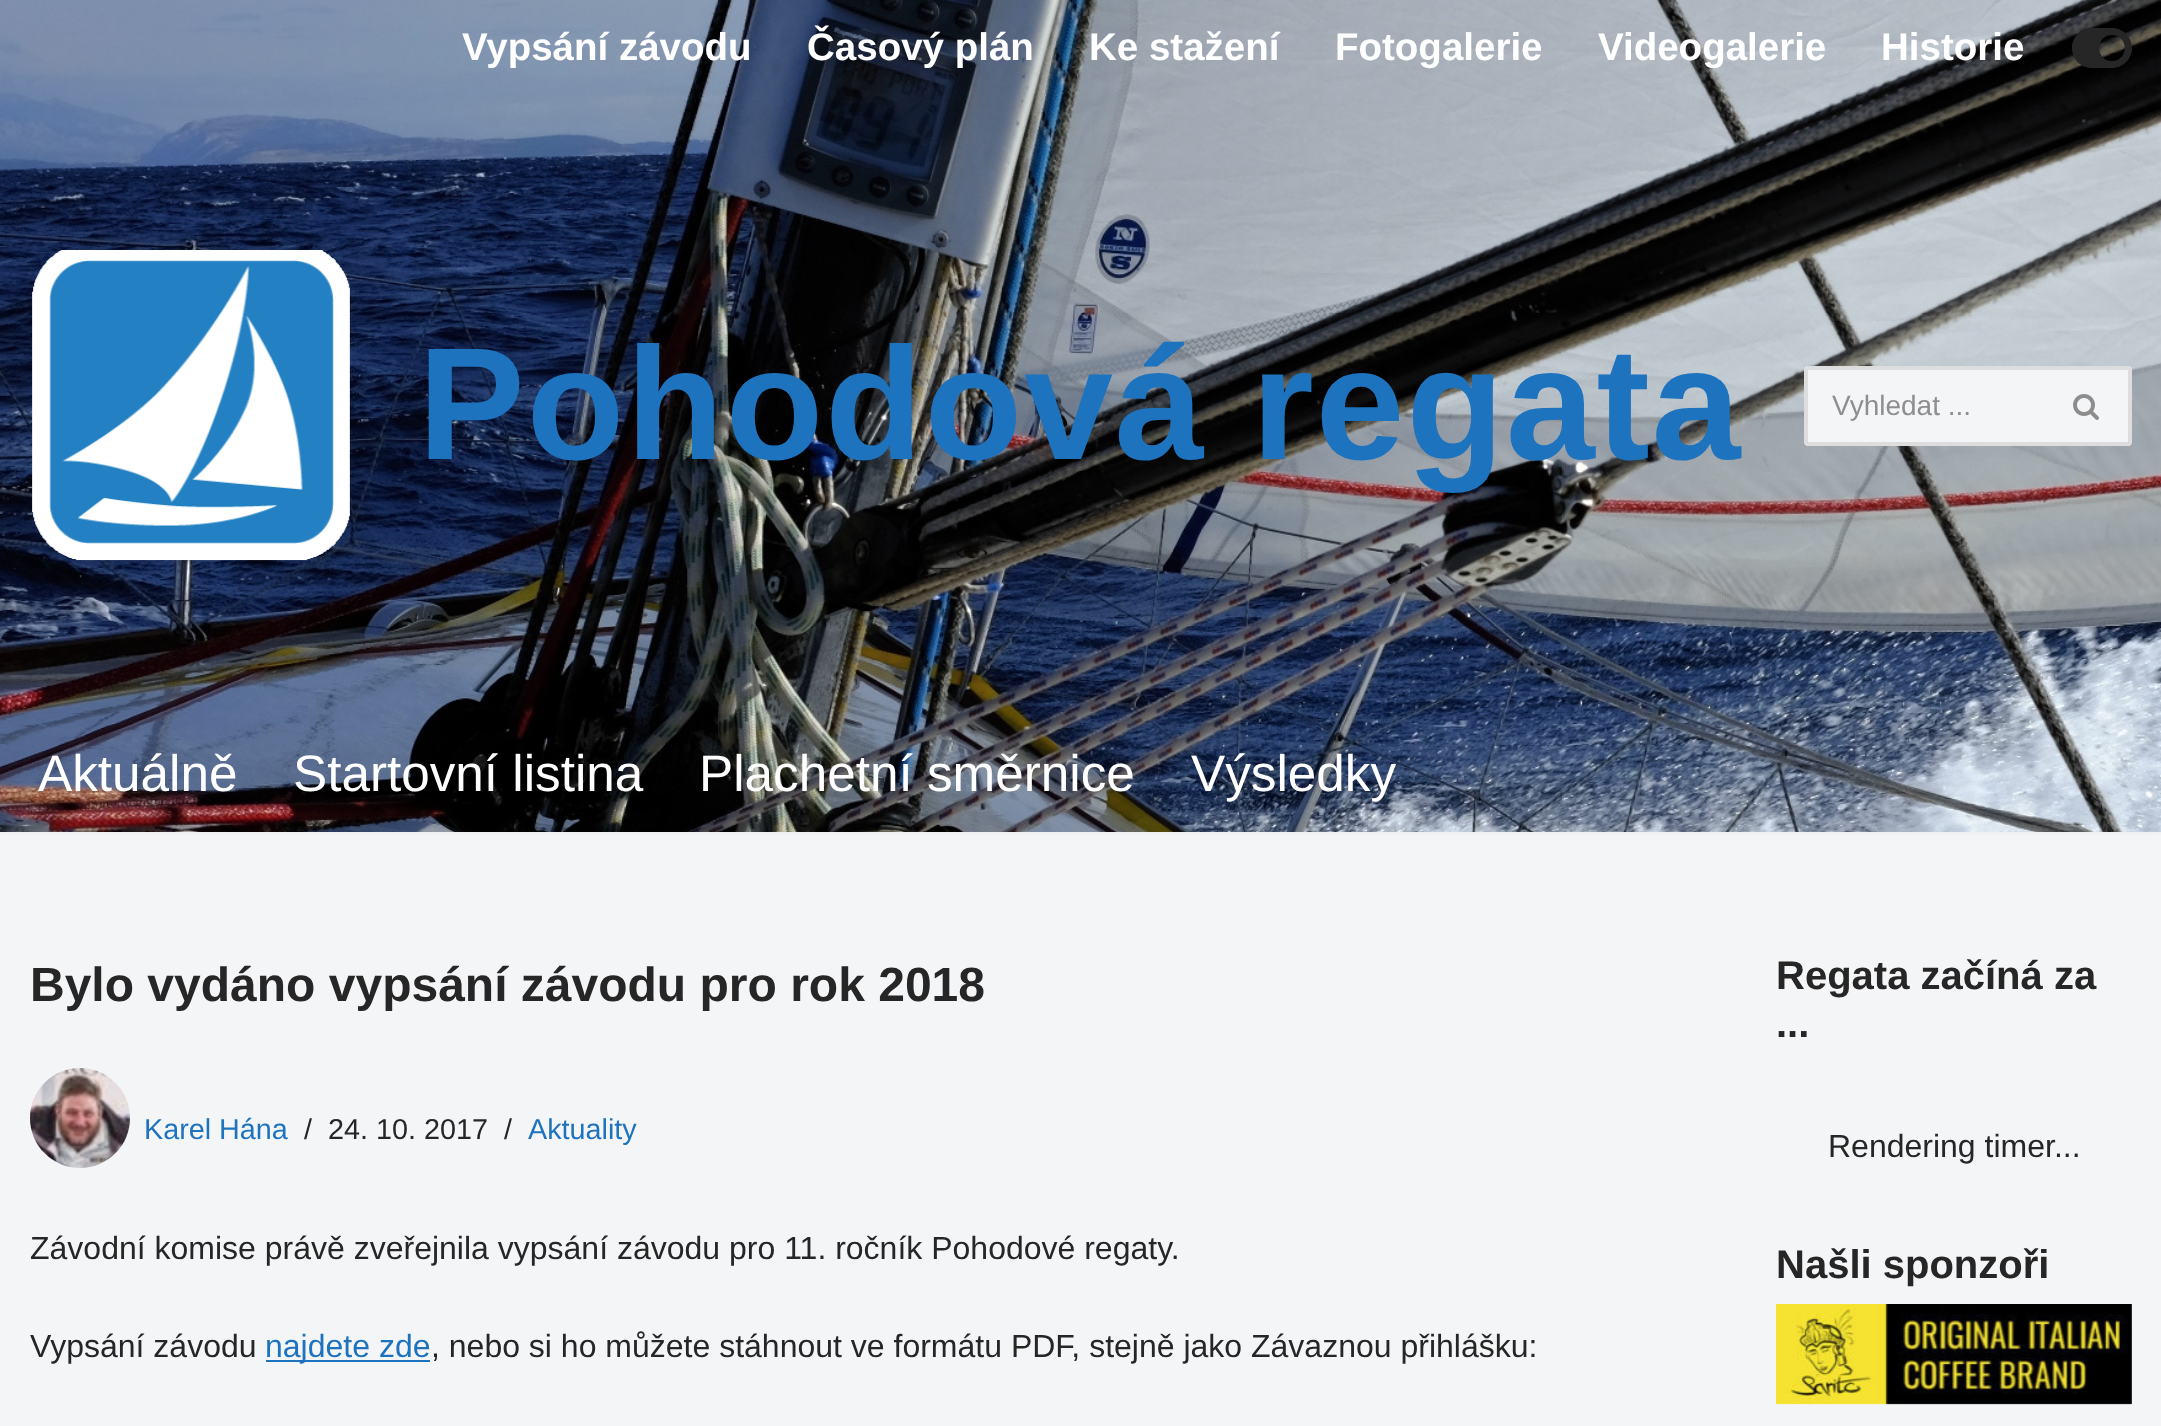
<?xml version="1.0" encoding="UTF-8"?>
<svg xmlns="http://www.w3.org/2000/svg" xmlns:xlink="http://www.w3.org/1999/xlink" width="2161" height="1426">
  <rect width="100%" height="100%" fill="#f4f5f7" />
  <rect y="-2" width="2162" height="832" fill="#000000" fill-opacity="0.1" filter="blur(3px)" />
  <image x="0" y="0" width="2161" height="96" xlink:href="image1.png" />
  <path d="M 2112 28 h -20 c -11 0 -20 9 -20 20 c 0 11 9 20 20 20 h 20 c 11 0 20 -9 20 -20 c 0 -11 -9 -20 -20 -20 z m 0 33 c -17 0 -17 -26 0 -26 c 17 0 17 26 0 26 z" fill="#272626" />
  <image x="0" y="96" width="2161" height="620" xlink:href="image2.png" />
  <image x="32" y="250" width="318" height="311" xlink:href="image3.png" />
  <path d="M 1808 366 h 234 v 80 h -234 c -2 0 -4 -2 -4 -4 v -72 c 0 -2 2 -4 4 -4 z" fill="#f4f5f7" />
  <rect x="1806" y="366" width="236" height="4" fill="#dddddd" />
  <rect x="1806" y="442" width="236" height="4" fill="#dddddd" />
  <rect x="1804" y="368" width="4" height="76" fill="#dddddd" />
  <path d="M 2042 366 h 86 c 2 0 4 2 4 4 v 72 c 0 2 -2 4 -4 4 h -86 z" fill="#f4f5f7" />
  <rect x="2042" y="366" width="88" height="4" fill="#dddddd" />
  <rect x="2128" y="368" width="4" height="76" fill="#dddddd" />
  <rect x="2042" y="442" width="88" height="4" fill="#dddddd" />
  <image x="2073" y="394" width="26" height="26" xlink:href="image4.png" />
  <image x="0" y="716" width="2161" height="116" xlink:href="image5.png" />
  <image x="30" y="1068" width="100" height="100" xlink:href="image6.png" />
  <rect x="266" y="1360" width="164" height="2" fill="#1e73be" />
  <image x="1776" y="1304" width="356" height="101" xlink:href="image7.png" />
  <text x="462" y="60" style="font-family: Liberation Sans; font-size: 38.5px; font-weight: bold; fill: #ffffff">Vypsání závodu</text>
  <text x="807" y="60" style="font-family: Liberation Sans; font-size: 38.5px; font-weight: bold; fill: #ffffff">Časový plán</text>
  <text x="1089" y="60" style="font-family: Liberation Sans; font-size: 38.5px; font-weight: bold; fill: #ffffff">Ke stažení</text>
  <text x="1335" y="60" style="font-family: Liberation Sans; font-size: 38.5px; font-weight: bold; fill: #ffffff">Fotogalerie</text>
  <text x="1598" y="60" style="font-family: Liberation Sans; font-size: 38.5px; font-weight: bold; fill: #ffffff">Videogalerie</text>
  <text x="1881" y="60" style="font-family: Liberation Sans; font-size: 38.5px; font-weight: bold; fill: #ffffff">Historie</text>
  <text x="418" y="459" style="font-family: Liberation Sans; font-size: 160px; font-weight: bold; letter-spacing: 1.75px; fill: #1e73be">Pohodová regata</text>
  <text x="1832" y="415" style="font-family: Liberation Sans; font-size: 28px; fill: #8e8e8f">Vyhledat ...</text>
  <text x="38" y="791" style="font-family: Liberation Sans; font-size: 51.25px; fill: #ffffff">Aktuálně</text>
  <text x="293" y="791" style="font-family: Liberation Sans; font-size: 51.25px; fill: #ffffff">Startovní listina</text>
  <text x="699" y="791" style="font-family: Liberation Sans; font-size: 51.25px; fill: #ffffff">Plachetní směrnice</text>
  <text x="1191" y="791" style="font-family: Liberation Sans; font-size: 51.25px; fill: #ffffff">Výsledky</text>
  <text x="30" y="1001" style="font-family: Liberation Sans; font-size: 48px; font-weight: bold; fill: #272626">Bylo vydáno vypsání závodu pro rok 2018</text>
  <text x="144" y="1139" style="font-family: Liberation Sans; font-size: 28.75px; fill: #1e73be">Karel Hána</text>
  <text x="304" y="1139" style="font-family: Liberation Sans; font-size: 28.75px; fill: #272626">/</text>
  <text x="328" y="1139" style="font-family: Liberation Sans; font-size: 28.75px; fill: #272626">24. 10. 2017</text>
  <text x="504" y="1139" style="font-family: Liberation Sans; font-size: 28.75px; fill: #272626">/</text>
  <text x="528" y="1139" style="font-family: Liberation Sans; font-size: 28.75px; fill: #1e73be">Aktuality</text>
  <text x="30" y="1259" style="font-family: Liberation Sans; font-size: 32px; fill: #272626">Závodní komise právě zveřejnila vypsání závodu pro 11. ročník Pohodové regaty.</text>
  <text x="30" y="1357" style="font-family: Liberation Sans; font-size: 32px; fill: #272626">Vypsání závodu</text>
  <text x="265" y="1357" style="font-family: Liberation Sans; font-size: 32px; fill: #1e73be">najdete zde</text>
  <text x="431" y="1357" style="font-family: Liberation Sans; font-size: 32px; fill: #272626">, nebo si ho můžete stáhnout ve formátu PDF, stejně jako Závaznou přihlášku:</text>
  <text x="1776" y="989" style="font-family: Liberation Sans; font-size: 40px; font-weight: bold; fill: #272626">Regata začíná za</text>
  <text x="1776" y="1037" style="font-family: Liberation Sans; font-size: 40px; font-weight: bold; fill: #272626">...</text>
  <text x="1828" y="1157" style="font-family: Liberation Sans; font-size: 32px; fill: #272626">Rendering timer...</text>
  <text x="1776" y="1278" style="font-family: Liberation Sans; font-size: 40px; font-weight: bold; fill: #272626">Našli sponzoři</text>
</svg>
